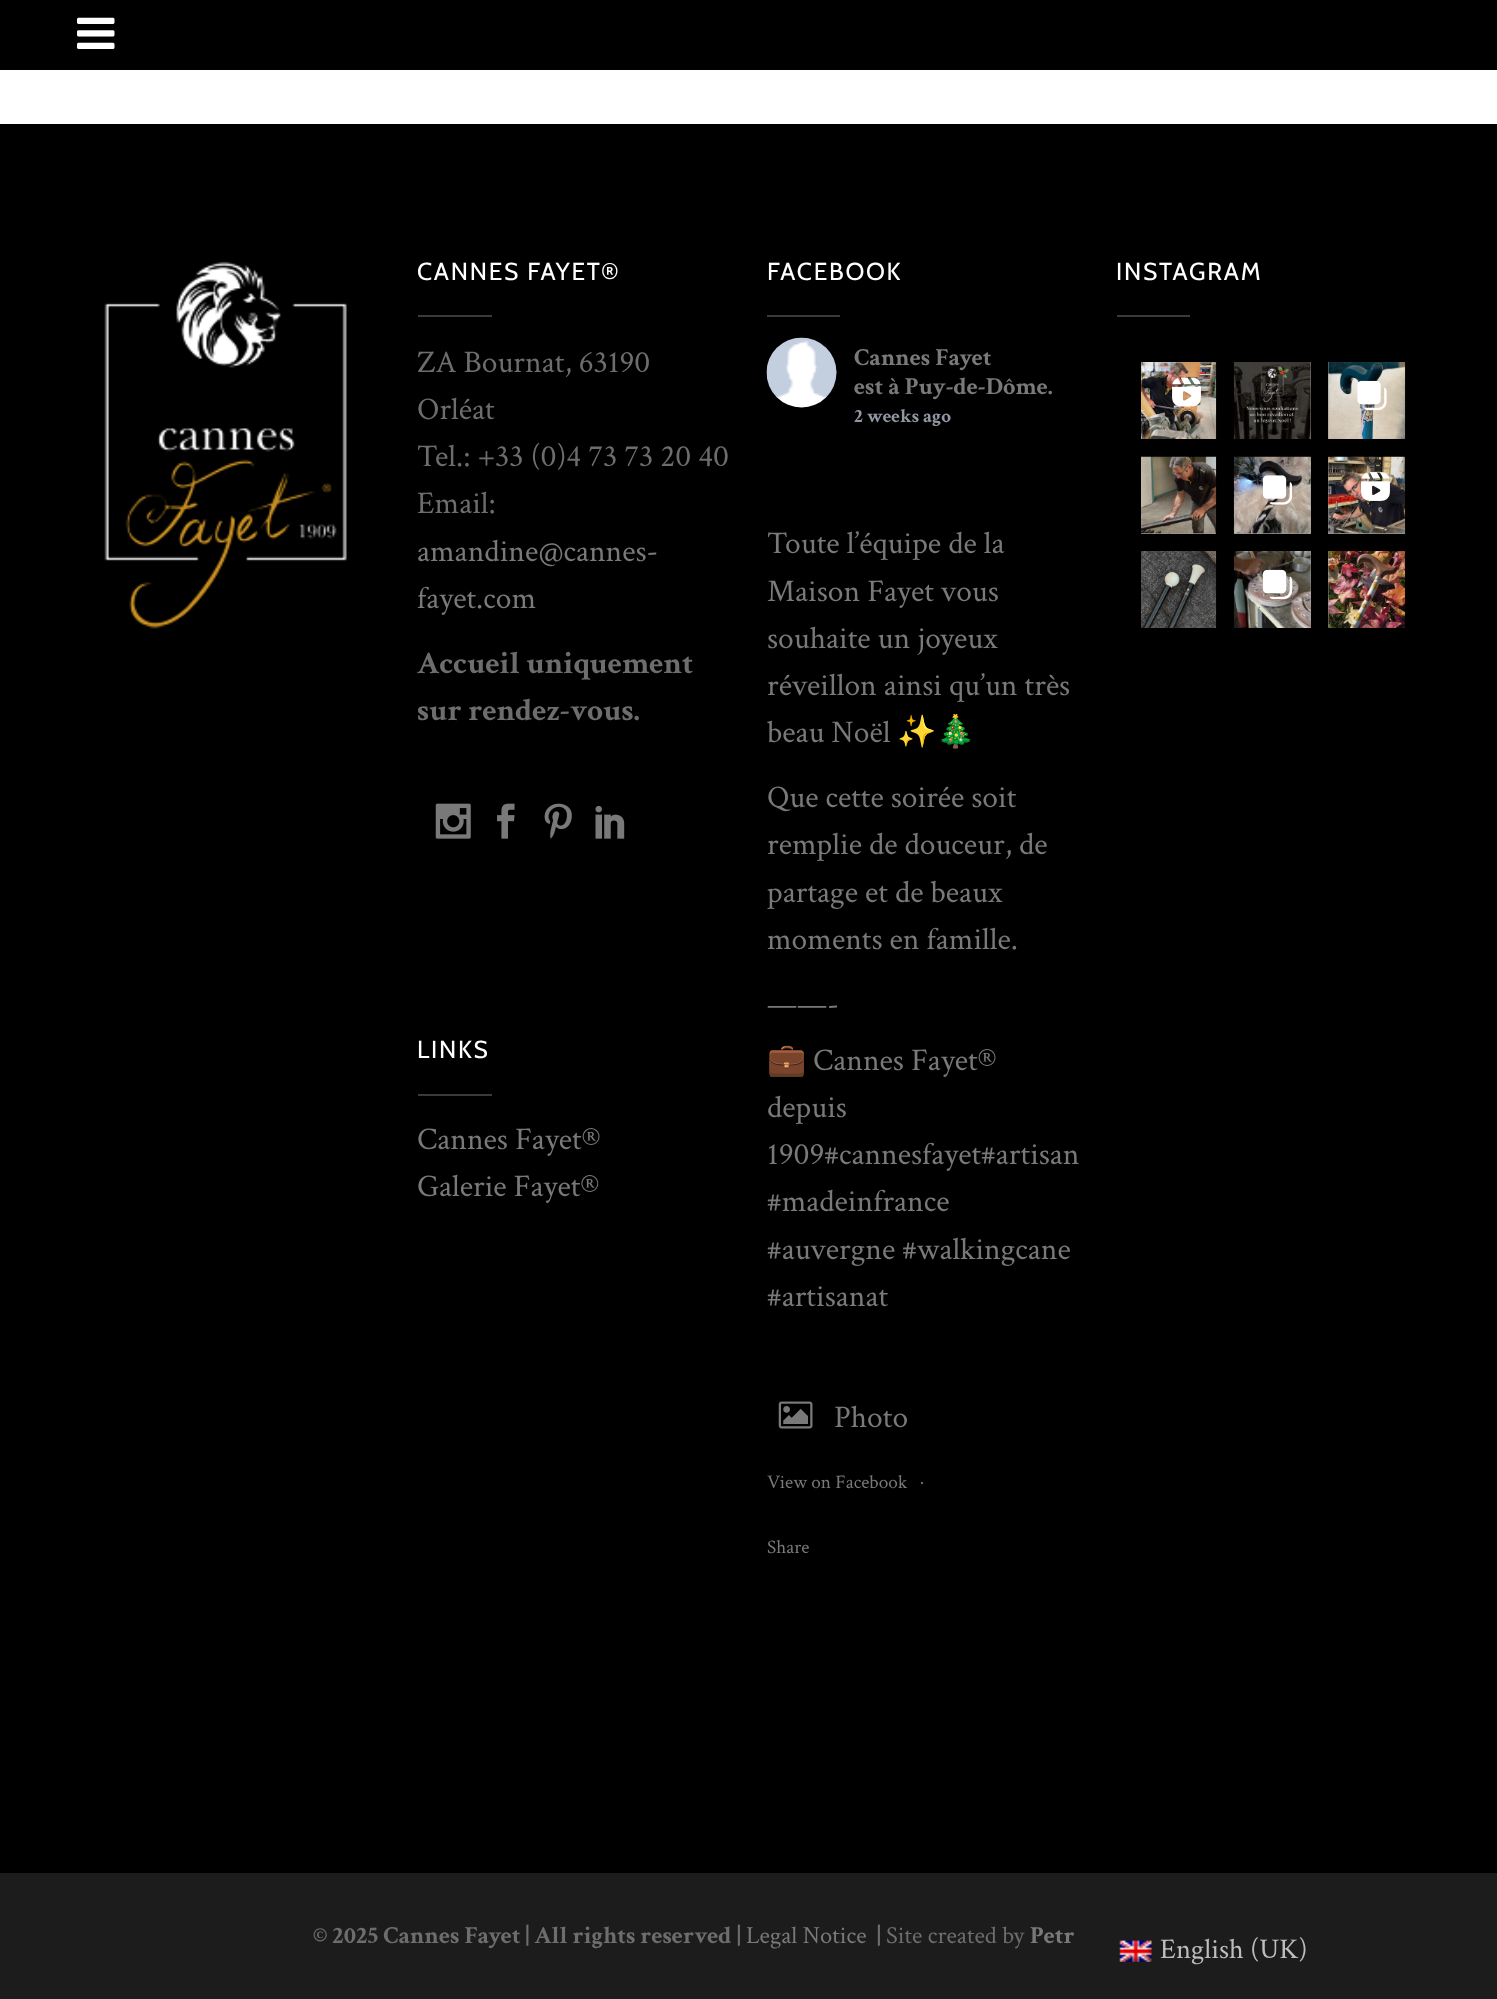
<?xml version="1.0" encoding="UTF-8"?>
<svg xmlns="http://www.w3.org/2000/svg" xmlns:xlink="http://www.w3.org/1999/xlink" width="1497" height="1999">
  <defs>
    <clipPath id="clip1"><rect x="767" y="338" width="315" height="1349" /></clipPath>
  </defs>
  <rect width="100%" height="100%" fill="#ffffff" />
  <rect width="1497" height="70" fill="#000000" />
  <image x="77" y="17" width="38" height="32" xlink:href="image1.png" />
  <rect y="124" width="1497" height="1749" fill="#000000" />
  <image x="104" y="261" width="243" height="368" xlink:href="image2.png" />
  <rect x="418" y="315" width="74" height="2" fill="#393a39" />
  <image x="435" y="803" width="36" height="36" xlink:href="image3.png" />
  <image x="497" y="803" width="18" height="36" xlink:href="image4.png" />
  <image x="544" y="803" width="28" height="36" xlink:href="image5.png" />
  <image x="595" y="805" width="30" height="34" xlink:href="image6.png" />
  <rect x="418" y="1094" width="74" height="2" fill="#393a39" />
  <rect x="767" y="315" width="73" height="2" fill="#393a39" />
  <image x="766" y="337" width="71" height="71" xlink:href="image7.png" />
  <image x="778" y="1401" width="35" height="28" xlink:href="image8.png" />
  <rect x="1117" y="315" width="73" height="2" fill="#393a39" />
  <image x="1141" y="362" width="76" height="77" xlink:href="image9.png" />
  <image x="1172" y="377" width="29" height="30" xlink:href="image10.png" />
  <rect x="1310" y="362" width="1" height="77" fill="#999999" />
  <image x="1233" y="362" width="78" height="77" xlink:href="image11.png" />
  <rect x="1328" y="362" width="1" height="77" fill="#999999" />
  <image x="1328" y="362" width="78" height="77" xlink:href="image12.png" />
  <image x="1357" y="380" width="30" height="31" xlink:href="image13.png" />
  <rect x="1141" y="533" width="75" height="1" fill="#999999" />
  <image x="1141" y="456" width="76" height="78" xlink:href="image14.png" />
  <rect x="1234" y="457" width="77" height="77" fill="#999999" />
  <image x="1233" y="456" width="78" height="78" xlink:href="image15.png" />
  <image x="1262" y="475" width="31" height="30" xlink:href="image16.png" />
  <rect x="1328" y="457" width="77" height="77" fill="#999999" />
  <image x="1328" y="456" width="78" height="78" xlink:href="image17.png" />
  <image x="1361" y="472" width="29" height="29" xlink:href="image18.png" />
  <image x="1141" y="551" width="76" height="77" xlink:href="image19.png" />
  <rect x="1310" y="551" width="1" height="77" fill="#999999" />
  <image x="1233" y="551" width="78" height="77" xlink:href="image20.png" />
  <image x="1262" y="569" width="31" height="31" xlink:href="image21.png" />
  <rect x="1328" y="551" width="1" height="77" fill="#999999" />
  <image x="1328" y="551" width="78" height="77" xlink:href="image22.png" />
  <rect y="1873" width="1497" height="126" fill="#1c1c1c" />
  <image x="1119" y="1940" width="33" height="22" xlink:href="image23.png" />
  <text x="417" y="280" style="font-family: Cabin; font-size: 24.5px; letter-spacing: 1.75px; fill: #ffffff">CANNES FAYET®</text>
  <text x="417" y="372" style="font-family: Crimson Text; font-size: 31.5px; fill: #6d6d6d">ZA Bournat, 63190</text>
  <text x="417" y="419" style="font-family: Crimson Text; font-size: 31.5px; fill: #6d6d6d">Orléat</text>
  <text x="417" y="466" style="font-family: Crimson Text; font-size: 31.5px; fill: #6d6d6d">Tel.: +33 (0)4 73 73 20 40</text>
  <text x="417" y="513" style="font-family: Crimson Text; font-size: 31.5px; fill: #6d6d6d">Email:</text>
  <text x="417" y="561" style="font-family: Crimson Text; font-size: 31.5px; fill: #797979">amandine@cannes-</text>
  <text x="417" y="608" style="font-family: Crimson Text; font-size: 31.5px; fill: #797979">fayet.com</text>
  <text x="417" y="673" style="font-family: Crimson Text; font-size: 31.5px; font-weight: bold; fill: #6d6d6d">Accueil uniquement</text>
  <text x="417" y="720" style="font-family: Crimson Text; font-size: 31.5px; font-weight: bold; fill: #6d6d6d">sur rendez-vous.</text>
  <text x="417" y="1058" style="font-family: Cabin; font-size: 24.5px; letter-spacing: 1.75px; fill: #ffffff">LINKS</text>
  <text x="417" y="1149" style="font-family: Crimson Text; font-size: 31.5px; fill: #797979">Cannes Fayet®</text>
  <text x="417" y="1196" style="font-family: Crimson Text; font-size: 31.5px; fill: #797979">Galerie Fayet®</text>
  <text x="767" y="280" style="font-family: Cabin; font-size: 24.5px; letter-spacing: 1.75px; fill: #ffffff">FACEBOOK</text>
  <text x="854" y="365" style="font-family: Crimson Text; font-size: 24.5px; font-weight: bold; fill: #797979">Cannes Fayet</text>
  <text x="854" y="394" style="font-family: Crimson Text; font-size: 24.5px; font-weight: bold; fill: #797979">est à Puy-de-Dôme.</text>
  <text x="854" y="422" style="font-family: Crimson Text; font-size: 19.25px; font-weight: bold; fill: #9197a3">2 weeks ago</text>
  <text x="767" y="553" style="font-family: Crimson Text; font-size: 31.5px; fill: #797979">Toute l’équipe de la</text>
  <text x="767" y="601" style="font-family: Crimson Text; font-size: 31.5px; fill: #797979">Maison Fayet vous</text>
  <text x="767" y="648" style="font-family: Crimson Text; font-size: 31.5px; fill: #797979">souhaite un joyeux</text>
  <text x="767" y="695" style="font-family: Crimson Text; font-size: 31.5px; fill: #797979">réveillon ainsi qu’un très</text>
  <text x="767" y="742" style="font-family: Crimson Text; font-size: 31.5px; fill: #797979">beau Noël</text>
  <text x="897" y="742" style="font-family: Noto Color Emoji; font-size: 31.5px; fill: #797979">✨🎄</text>
  <text x="767" y="807" style="font-family: Crimson Text; font-size: 31.5px; fill: #797979">Que cette soirée soit</text>
  <text x="767" y="854" style="font-family: Crimson Text; font-size: 31.5px; fill: #797979">remplie de douceur, de</text>
  <text x="767" y="902" style="font-family: Crimson Text; font-size: 31.5px; fill: #797979">partage et de beaux</text>
  <text x="767" y="949" style="font-family: Crimson Text; font-size: 31.5px; fill: #797979">moments en famille.</text>
  <text x="767" y="1014" style="font-family: Crimson Text; font-size: 31.5px; fill: #797979">——-</text>
  <g clip-path="url(#clip1)">
    <text x="767" y="1070" style="font-family: Noto Color Emoji; font-size: 31.5px; fill: #797979">💼</text>
  </g>
  <text x="813" y="1070" style="font-family: Crimson Text; font-size: 31.5px; fill: #797979">Cannes Fayet®</text>
  <text x="767" y="1117" style="font-family: Crimson Text; font-size: 31.5px; fill: #797979">depuis</text>
  <text x="767" y="1164" style="font-family: Crimson Text; font-size: 31.5px; fill: #797979">1909#cannes</text>
  <text x="922" y="1164" style="font-family: Crimson Text; font-size: 31.5px; fill: #797979">fayet#artisan</text>
  <text x="767" y="1211" style="font-family: Crimson Text; font-size: 31.5px; fill: #797979">#madeinfrance</text>
  <text x="767" y="1259" style="font-family: Crimson Text; font-size: 31.5px; fill: #797979">#auvergne #walkingcane</text>
  <text x="767" y="1306" style="font-family: Crimson Text; font-size: 31.5px; fill: #797979">#artisanat</text>
  <text x="834" y="1427" style="font-family: Crimson Text; font-size: 31.5px; fill: #797979">Photo</text>
  <text x="767" y="1488" style="font-family: Crimson Text; font-size: 19.25px; fill: #797979">View on Facebook</text>
  <text x="920" y="1488" style="font-family: Crimson Text; font-size: 19.25px; fill: #797979">·</text>
  <text x="767" y="1553" style="font-family: Crimson Text; font-size: 19.25px; fill: #797979">Share</text>
  <text x="1116" y="280" style="font-family: Cabin; font-size: 24.5px; letter-spacing: 1.75px; fill: #ffffff">INSTAGRAM</text>
  <text x="313" y="1943" style="font-family: Crimson Text; font-size: 24.5px; font-weight: bold; fill: #6d6d6d">© 2025 Cannes Fayet | All rights reserved</text>
  <text x="737" y="1943" style="font-family: Crimson Text; font-size: 24.5px; font-weight: bold; fill: #6d6d6d">|</text>
  <text x="746" y="1943" style="font-family: Crimson Text; font-size: 24.5px; fill: #797979">Legal Notice</text>
  <text x="877" y="1943" style="font-family: Crimson Text; font-size: 24.5px; font-weight: bold; fill: #6d6d6d">|</text>
  <text x="886" y="1943" style="font-family: Crimson Text; font-size: 24.5px; fill: #6d6d6d">Site created by</text>
  <text x="1030" y="1943" style="font-family: Crimson Text; font-size: 24.5px; font-weight: bold; fill: #797979">Petr</text>
  <text x="1160" y="1958" style="font-family: Crimson Text; font-size: 28.5px; fill: #bdbdbd">English (UK)</text>
</svg>
